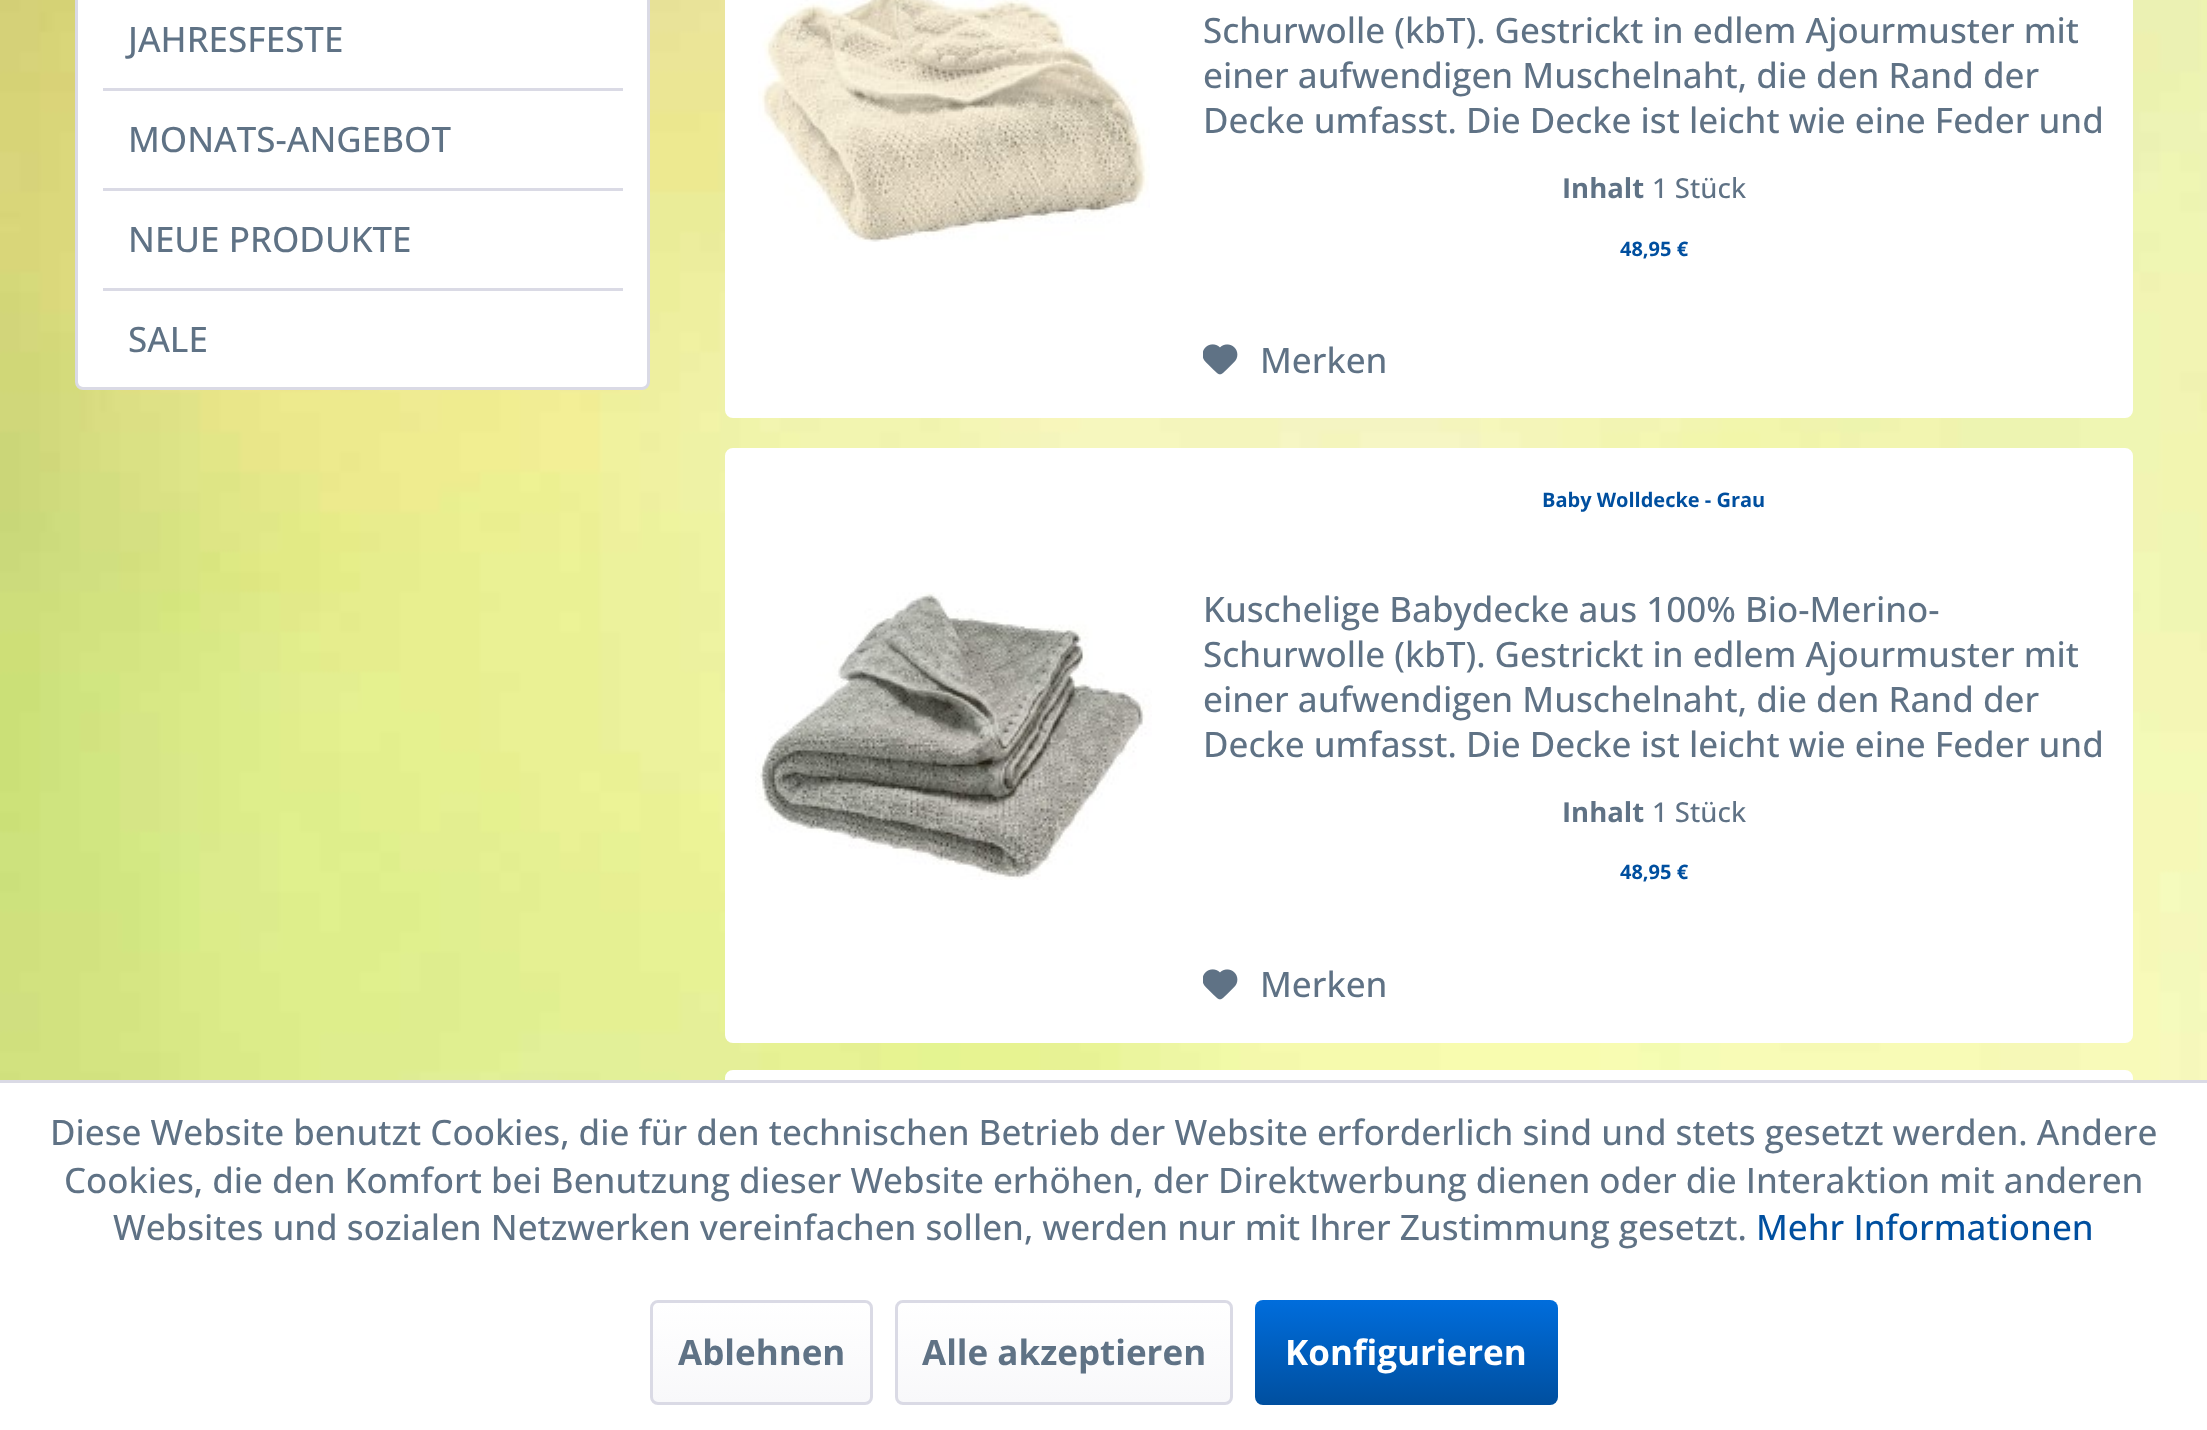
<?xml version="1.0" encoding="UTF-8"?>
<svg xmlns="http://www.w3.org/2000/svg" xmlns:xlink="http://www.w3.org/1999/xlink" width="2207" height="1430">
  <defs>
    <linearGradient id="g1" gradientUnits="userSpaceOnUse" x1="761" y1="1303" x2="761" y2="1403"><stop offset="0" stop-color="#ffffff" /><stop offset="1" stop-color="#f8f8fa" /></linearGradient>
    <linearGradient id="g2" gradientUnits="userSpaceOnUse" x1="1064" y1="1303" x2="1064" y2="1403"><stop offset="0" stop-color="#ffffff" /><stop offset="1" stop-color="#f8f8fa" /></linearGradient>
    <linearGradient id="g3" gradientUnits="userSpaceOnUse" x1="1406" y1="1300" x2="1406" y2="1405"><stop offset="0" stop-color="#006ddc" /><stop offset="1" stop-color="#004f9f" /></linearGradient>
  </defs>
  <rect width="100%" height="100%" fill="#ffffff" />
  <image x="0" y="0" width="2207" height="1080" xlink:href="image1.png" />
  <rect x="78" y="-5" width="570" height="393" rx="5" fill="#ffffff" />
  <rect x="76.5" y="-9.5" width="572" height="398" rx="6.5" fill="none" stroke="#dadae5" stroke-width="3" />
  <rect x="103" y="88" width="520" height="3" fill="#dadae5" />
  <rect x="103" y="188" width="520" height="3" fill="#dadae5" />
  <rect x="103" y="288" width="520" height="3" fill="#dadae5" />
  <rect x="726.5" y="-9.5" width="1405" height="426" rx="6.5" fill="#ffffff" stroke="#ffffff" stroke-width="3" />
  <image x="758" y="0" width="392" height="242" xlink:href="image2.png" />
  <image x="1203" y="344" width="35" height="31" xlink:href="image3.png" />
  <rect x="726.5" y="449.5" width="1405" height="592" rx="6.5" fill="#ffffff" stroke="#ffffff" stroke-width="3" />
  <image x="755" y="592" width="397" height="288" xlink:href="image4.png" />
  <image x="1203" y="969" width="35" height="31" xlink:href="image3.png" />
  <rect x="726.5" y="1071.5" width="1405" height="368" rx="6.5" fill="#ffffff" stroke="#ffffff" stroke-width="3" />
  <rect y="1080" width="2207" height="3" fill="#dadae5" />
  <rect x="653" y="1303" width="217" height="100" rx="5" fill="url(#g1)" />
  <rect x="651.5" y="1301.5" width="220" height="102" rx="6.5" fill="none" stroke="#dadae5" stroke-width="3" />
  <rect x="898" y="1303" width="332" height="100" rx="5" fill="url(#g2)" />
  <rect x="896.5" y="1301.5" width="335" height="102" rx="6.5" fill="none" stroke="#dadae5" stroke-width="3" />
  <rect x="1255" y="1300" width="303" height="105" rx="8" fill="url(#g3)" />
  <text x="128" y="52" style="font-family: Open Sans; font-size: 35px; font-weight: 500; fill: #5f7285">JAHRESFESTE</text>
  <text x="128" y="152" style="font-family: Open Sans; font-size: 35px; font-weight: 500; fill: #5f7285">MONATS-ANGEBOT</text>
  <text x="128" y="252" style="font-family: Open Sans; font-size: 35px; font-weight: 500; fill: #5f7285">NEUE PRODUKTE</text>
  <text x="128" y="352" style="font-family: Open Sans; font-size: 35px; font-weight: 500; fill: #5f7285">SALE</text>
  <text x="1203" y="43" style="font-family: Open Sans; font-size: 35px; font-weight: 500; fill: #5f7285">Schurwolle (kbT). Gestrickt in edlem Ajourmuster mit</text>
  <text x="1203" y="88" style="font-family: Open Sans; font-size: 35px; font-weight: 500; fill: #5f7285">einer aufwendigen Muschelnaht, die den Rand der</text>
  <text x="1203" y="133" style="font-family: Open Sans; font-size: 35px; font-weight: 500; fill: #5f7285">Decke umfasst. Die Decke ist leicht wie eine Feder und</text>
  <text x="1562" y="198" style="font-family: Open Sans; font-size: 27.5px; font-weight: bold; fill: #5f7285">Inhalt</text>
  <text x="1652" y="198" style="font-family: Open Sans; font-size: 27.5px; font-weight: 500; fill: #5f7285">1 Stück</text>
  <text x="1620" y="256" style="font-family: Open Sans; font-size: 20px; font-weight: bold; fill: #004f9f">48,95 €</text>
  <text x="1260" y="373" style="font-family: Open Sans; font-size: 35px; font-weight: 500; fill: #5f7285">Merken</text>
  <text x="1542" y="507" style="font-family: Open Sans; font-size: 20px; font-weight: bold; fill: #004f9f">Baby Wolldecke - Grau</text>
  <text x="1203" y="622" style="font-family: Open Sans; font-size: 35px; font-weight: 500; fill: #5f7285">Kuschelige Babydecke aus 100% Bio-Merino-</text>
  <text x="1203" y="667" style="font-family: Open Sans; font-size: 35px; font-weight: 500; fill: #5f7285">Schurwolle (kbT). Gestrickt in edlem Ajourmuster mit</text>
  <text x="1203" y="712" style="font-family: Open Sans; font-size: 35px; font-weight: 500; fill: #5f7285">einer aufwendigen Muschelnaht, die den Rand der</text>
  <text x="1203" y="757" style="font-family: Open Sans; font-size: 35px; font-weight: 500; fill: #5f7285">Decke umfasst. Die Decke ist leicht wie eine Feder und</text>
  <text x="1562" y="822" style="font-family: Open Sans; font-size: 27.5px; font-weight: bold; fill: #5f7285">Inhalt</text>
  <text x="1652" y="822" style="font-family: Open Sans; font-size: 27.5px; font-weight: 500; fill: #5f7285">1 Stück</text>
  <text x="1620" y="879" style="font-family: Open Sans; font-size: 20px; font-weight: bold; fill: #004f9f">48,95 €</text>
  <text x="1260" y="997" style="font-family: Open Sans; font-size: 35px; font-weight: 500; fill: #5f7285">Merken</text>
  <text x="50" y="1145" style="font-family: Open Sans; font-size: 35px; font-weight: 500; fill: #5f7285">Diese Website benutzt Cookies, die für den technischen Betrieb der Website erforderlich sind und stets gesetzt werden. Andere</text>
  <text x="64" y="1193" style="font-family: Open Sans; font-size: 35px; font-weight: 500; fill: #5f7285">Cookies, die den Komfort bei Benutzung dieser Website erhöhen, der Direktwerbung dienen oder die Interaktion mit anderen</text>
  <text x="113" y="1240" style="font-family: Open Sans; font-size: 35px; font-weight: 500; fill: #5f7285">Websites und sozialen Netzwerken vereinfachen sollen, werden nur mit Ihrer Zustimmung gesetzt.</text>
  <text x="1756" y="1240" style="font-family: Open Sans; font-size: 35px; font-weight: 500; fill: #004f9f">Mehr Informationen</text>
  <text x="678" y="1365" style="font-family: Open Sans; font-size: 35px; font-weight: bold; fill: #5f7285">Ablehnen</text>
  <text x="922" y="1365" style="font-family: Open Sans; font-size: 35px; font-weight: bold; fill: #5f7285">Alle akzeptieren</text>
  <text x="1285" y="1365" style="font-family: Open Sans; font-size: 35px; font-weight: bold; fill: #ffffff">Konfigurieren</text>
</svg>
